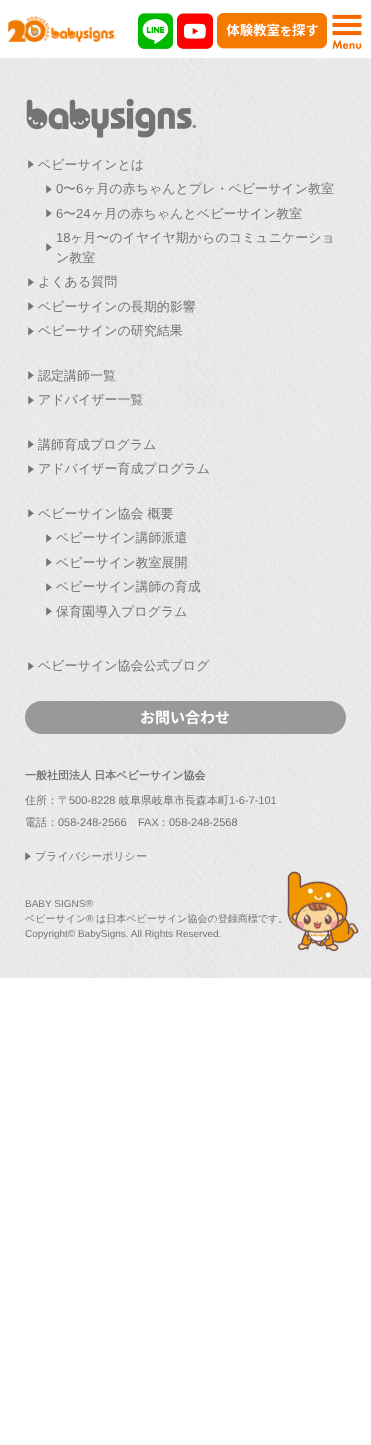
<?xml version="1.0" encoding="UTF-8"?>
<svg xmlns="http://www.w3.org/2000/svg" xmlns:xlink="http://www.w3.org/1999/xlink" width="371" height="1445">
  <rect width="100%" height="100%" fill="#ffffff" />
  <image x="8" y="16" width="108" height="26" xlink:href="image1.png" />
  <image x="138" y="13" width="35" height="36" xlink:href="image2.png" />
  <image x="177" y="13" width="36" height="36" xlink:href="image3.png" />
  <image x="217" y="13" width="110" height="36" xlink:href="image4.png" />
  <image x="332" y="14" width="30" height="35" xlink:href="image5.png" />
  <image x="0" y="58" width="371" height="920" xlink:href="image6.png" />
  <image x="26" y="98" width="170" height="40" xlink:href="image7.png" />
  <image x="28" y="160" width="6" height="9" xlink:href="image8.png" />
  <image x="46" y="185" width="6" height="9" xlink:href="image9.png" />
  <image x="46" y="209" width="6" height="9" xlink:href="image10.png" />
  <image x="46" y="243" width="6" height="9" xlink:href="image11.png" />
  <image x="28" y="278" width="6" height="9" xlink:href="image12.png" />
  <image x="28" y="302" width="6" height="9" xlink:href="image13.png" />
  <image x="28" y="327" width="6" height="9" xlink:href="image14.png" />
  <image x="28" y="371" width="6" height="9" xlink:href="image15.png" />
  <image x="28" y="396" width="6" height="9" xlink:href="image16.png" />
  <image x="28" y="440" width="6" height="9" xlink:href="image17.png" />
  <image x="28" y="465" width="6" height="9" xlink:href="image18.png" />
  <image x="28" y="509" width="6" height="9" xlink:href="image19.png" />
  <image x="46" y="534" width="6" height="9" xlink:href="image20.png" />
  <image x="46" y="558" width="6" height="9" xlink:href="image21.png" />
  <image x="46" y="583" width="6" height="9" xlink:href="image22.png" />
  <image x="46" y="607" width="6" height="9" xlink:href="image23.png" />
  <image x="28" y="662" width="6" height="9" xlink:href="image24.png" />
  <rect x="25" y="701" width="321" height="33" rx="16.5" fill="#999999" />
  <image x="25" y="852" width="6" height="9" xlink:href="image25.png" />
  <image x="287" y="871" width="72" height="81" xlink:href="image26.png" />
  <text x="38" y="169" style="font-family: WenQuanYi Zen Hei; font-size: 13px; font-weight: 500; fill: #737373">ベビーサインとは</text>
  <text x="56" y="193" style="font-family: Liberation Sans; font-size: 13px; fill: #737373">0</text>
  <text x="63" y="193" style="font-family: WenQuanYi Zen Hei; font-size: 13px; font-weight: 500; fill: #737373">〜</text>
  <text x="76" y="193" style="font-family: Liberation Sans; font-size: 13px; fill: #737373">6</text>
  <text x="83" y="193" style="font-family: WenQuanYi Zen Hei; font-size: 13px; font-weight: 500; fill: #737373">ヶ月の赤ちゃんとプレ・ベビーサイン教室</text>
  <text x="56" y="218" style="font-family: Liberation Sans; font-size: 13px; fill: #737373">6</text>
  <text x="63" y="218" style="font-family: WenQuanYi Zen Hei; font-size: 13px; font-weight: 500; fill: #737373">〜</text>
  <text x="76" y="218" style="font-family: Liberation Sans; font-size: 13px; fill: #737373">24</text>
  <text x="91" y="218" style="font-family: WenQuanYi Zen Hei; font-size: 13px; font-weight: 500; fill: #737373">ヶ月の赤ちゃんとベビーサイン教室</text>
  <text x="56" y="242" style="font-family: Liberation Sans; font-size: 13px; fill: #737373">18</text>
  <text x="70" y="242" style="font-family: WenQuanYi Zen Hei; font-size: 13px; font-weight: 500; fill: #737373">ヶ月〜のイヤイヤ期からのコミュニケーショ</text>
  <text x="56" y="262" style="font-family: WenQuanYi Zen Hei; font-size: 13px; font-weight: 500; fill: #737373">ン教室</text>
  <text x="38" y="286" style="font-family: WenQuanYi Zen Hei; font-size: 13px; font-weight: 500; fill: #737373">よくある質問</text>
  <text x="38" y="311" style="font-family: WenQuanYi Zen Hei; font-size: 13px; font-weight: 500; fill: #737373">ベビーサインの長期的影響</text>
  <text x="38" y="335" style="font-family: WenQuanYi Zen Hei; font-size: 13px; font-weight: 500; fill: #737373">ベビーサインの研究結果</text>
  <text x="38" y="380" style="font-family: WenQuanYi Zen Hei; font-size: 13px; font-weight: 500; fill: #737373">認定講師一覧</text>
  <text x="38" y="404" style="font-family: WenQuanYi Zen Hei; font-size: 13px; font-weight: 500; fill: #737373">アドバイザー一覧</text>
  <text x="38" y="449" style="font-family: WenQuanYi Zen Hei; font-size: 13px; font-weight: 500; fill: #737373">講師育成プログラム</text>
  <text x="38" y="473" style="font-family: WenQuanYi Zen Hei; font-size: 13px; font-weight: 500; fill: #737373">アドバイザー育成プログラム</text>
  <text x="38" y="518" style="font-family: WenQuanYi Zen Hei; font-size: 13px; font-weight: 500; fill: #737373">ベビーサイン協会 概要</text>
  <text x="56" y="542" style="font-family: WenQuanYi Zen Hei; font-size: 13px; font-weight: 500; fill: #737373">ベビーサイン講師派遣</text>
  <text x="56" y="567" style="font-family: WenQuanYi Zen Hei; font-size: 13px; font-weight: 500; fill: #737373">ベビーサイン教室展開</text>
  <text x="56" y="591" style="font-family: WenQuanYi Zen Hei; font-size: 13px; font-weight: 500; fill: #737373">ベビーサイン講師の育成</text>
  <text x="56" y="616" style="font-family: WenQuanYi Zen Hei; font-size: 13px; font-weight: 500; fill: #737373">保育園導入プログラム</text>
  <text x="38" y="670" style="font-family: WenQuanYi Zen Hei; font-size: 13px; font-weight: 500; fill: #737373">ベビーサイン協会公式ブログ</text>
  <text x="140" y="723" style="font-family: Noto Sans JP; font-size: 15px; font-weight: bold; fill: #ffffff">お問い合わせ</text>
  <text x="25" y="779" style="font-family: WenQuanYi Zen Hei; font-size: 11px; font-weight: bold; fill: #737373">一般社団法人 日本ベビーサイン協会</text>
  <text x="25" y="804" style="font-family: WenQuanYi Zen Hei; font-size: 11px; font-weight: 500; fill: #737373">住所：〒</text>
  <text x="69" y="804" style="font-family: Liberation Sans; font-size: 11px; fill: #737373">500-8228</text>
  <text x="119" y="804" style="font-family: WenQuanYi Zen Hei; font-size: 11px; font-weight: 500; fill: #737373">岐阜県岐阜市長森本町</text>
  <text x="229" y="804" style="font-family: Liberation Sans; font-size: 11px; fill: #737373">1-6-7-101</text>
  <text x="25" y="826" style="font-family: WenQuanYi Zen Hei; font-size: 11px; font-weight: 500; fill: #737373">電話：</text>
  <text x="58" y="826" style="font-family: Liberation Sans; font-size: 11px; fill: #737373">058-248-2566</text>
  <text x="138" y="826" style="font-family: Liberation Sans; font-size: 11px; fill: #737373">FAX</text>
  <text x="158" y="826" style="font-family: WenQuanYi Zen Hei; font-size: 11px; font-weight: 500; fill: #737373">：</text>
  <text x="169" y="826" style="font-family: Liberation Sans; font-size: 11px; fill: #737373">058-248-2568</text>
  <text x="35" y="860" style="font-family: WenQuanYi Zen Hei; font-size: 11px; font-weight: 500; fill: #737373">プライバシーポリシー</text>
  <text x="25" y="907" style="font-family: Liberation Sans; font-size: 10px; fill: #737373">BABY SIGNS®</text>
  <text x="25" y="922" style="font-family: WenQuanYi Zen Hei; font-size: 10px; font-weight: 500; fill: #737373">ベビーサイン</text>
  <text x="86" y="922" style="font-family: Liberation Sans; font-size: 10px; fill: #737373">®</text>
  <text x="96" y="922" style="font-family: WenQuanYi Zen Hei; font-size: 10px; font-weight: 500; fill: #737373">は日本ベビーサイン協会の登録商標です。</text>
  <text x="25" y="937" style="font-family: Liberation Sans; font-size: 10px; fill: #737373">Copyright© BabySigns. All Rights Reserved.</text>
</svg>
